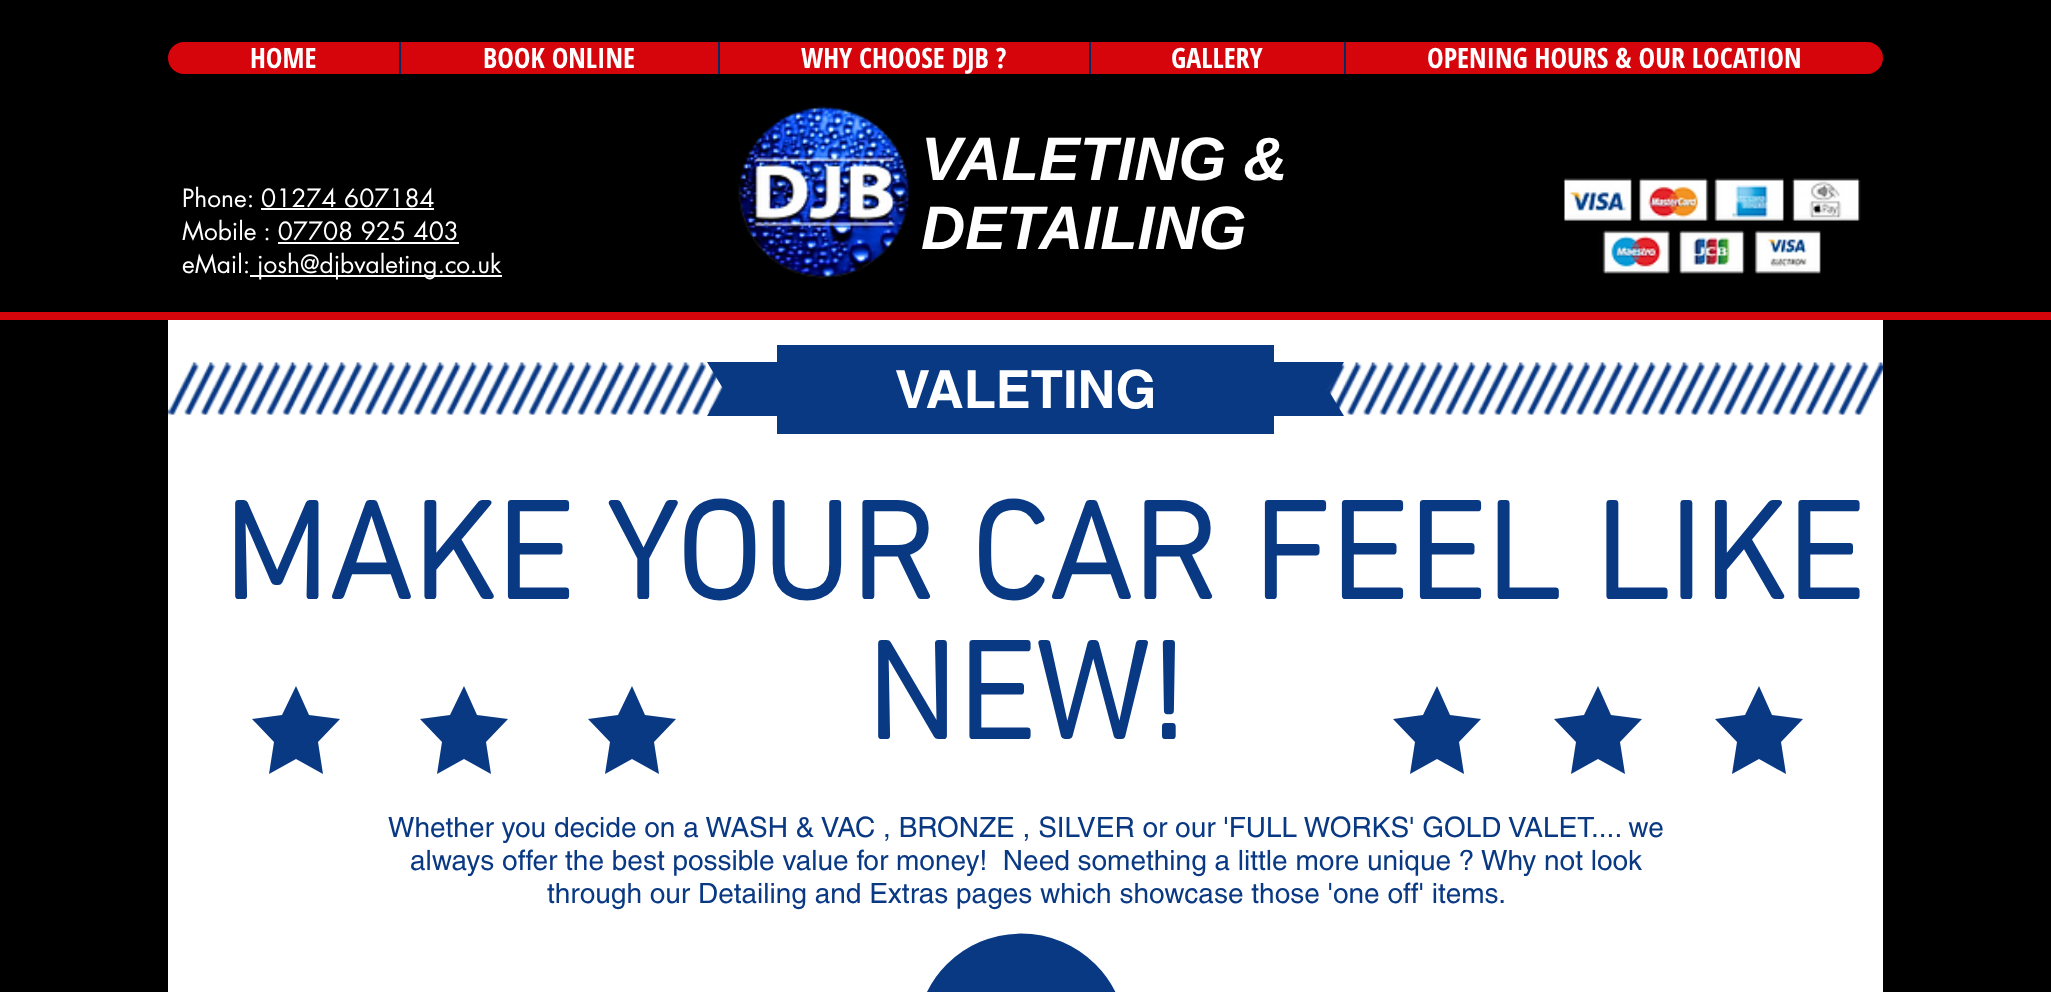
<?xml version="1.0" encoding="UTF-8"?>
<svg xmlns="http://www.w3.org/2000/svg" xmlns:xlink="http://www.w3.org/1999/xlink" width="2051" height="992">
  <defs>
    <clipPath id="clip1"><rect x="707" y="362" width="637" height="28" /></clipPath>
    <clipPath id="clip2"><rect x="707" y="390" width="637" height="27" /></clipPath>
  </defs>
  <rect width="100%" height="100%" fill="#000000" />
  <rect x="168" y="42" width="1715" height="32" rx="16" fill="#d6040b" />
  <rect x="399" y="42" width="2" height="32" fill="#072860" />
  <rect x="718" y="42" width="2" height="32" fill="#072860" />
  <rect x="1089" y="42" width="2" height="32" fill="#072860" />
  <rect x="1344" y="42" width="2" height="32" fill="#072860" />
  <rect x="261" y="208" width="173" height="2" fill="#ffffff" />
  <rect x="278" y="242" width="181" height="2" fill="#ffffff" />
  <rect x="250" y="275" width="252" height="2" fill="#ffffff" />
  <image x="738" y="106" width="173" height="173" xlink:href="image1.png" />
  <image x="1563" y="178" width="298" height="96" xlink:href="image2.png" />
  <rect y="312" width="2051" height="8" fill="#d6040b" />
  <rect x="168" y="320" width="1715" height="672" fill="#ffffff" />
  <image x="168" y="362" width="1715" height="53" xlink:href="image3.png" />
  <g clip-path="url(#clip1)">
    <path d="M 707 362 h 105 v 175 z" fill="#0a3984" />
    <path d="M 1239 362 h 105 l -105 175 z" fill="#0a3984" />
  </g>
  <g clip-path="url(#clip2)">
    <path d="M 812 416 h -105 l 105 -174 z" fill="#0a3984" />
    <path d="M 1344 416 h -105 v -174 z" fill="#0a3984" />
  </g>
  <rect x="777" y="345" width="497" height="89" fill="#0a3984" />
  <path d="M 296 686 l 13 29 l 31 4 l -22 23 l 5 32 l -27 -15 l -27 15 l 5 -32 l -22 -23 l 30 -4 z" fill="#0a3984" />
  <path d="M 464 686 l 13 29 l 31 4 l -22 23 l 5 32 l -27 -15 l -27 15 l 5 -32 l -22 -23 l 30 -4 z" fill="#0a3984" />
  <path d="M 632 686 l 13 29 l 31 4 l -22 23 l 5 32 l -27 -15 l -27 15 l 5 -32 l -22 -23 l 30 -4 z" fill="#0a3984" />
  <path d="M 1437 686 l 13 29 l 31 4 l -22 23 l 5 32 l -27 -15 l -27 15 l 5 -32 l -22 -23 l 30 -4 z" fill="#0a3984" />
  <path d="M 1598 686 l 13 29 l 31 4 l -22 23 l 5 32 l -27 -15 l -27 15 l 5 -32 l -22 -23 l 30 -4 z" fill="#0a3984" />
  <path d="M 1759 686 l 13 29 l 31 4 l -22 23 l 5 32 l -27 -15 l -27 15 l 5 -32 l -22 -23 l 30 -4 z" fill="#0a3984" />
  <path d="M 1122 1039 c 0 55 -45 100 -101 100 c -55 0 -101 -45 -101 -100 c 0 -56 46 -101 101 -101 c 56 0 101 45 101 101 z" fill="#0a3984" />
  <path d="M 1122 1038.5 c 0 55.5 -45.5 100.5 -101 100.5 c -55.5 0 -100.5 -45 -100.5 -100.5 c 0 -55.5 45 -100.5 100.5 -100.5 c 55.5 0 101 45 101 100.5 z" fill="none" stroke="#0a3984" stroke-width="8.8" />
  <text x="250" y="68" style="font-family: Open Sans Condensed; font-size: 28px; font-weight: bold; fill: #ffffff">HOME</text>
  <text x="483" y="68" style="font-family: Open Sans Condensed; font-size: 28px; font-weight: bold; fill: #ffffff">BOOK ONLINE</text>
  <text x="801" y="68" style="font-family: Open Sans Condensed; font-size: 28px; font-weight: bold; fill: #ffffff">WHY CHOOSE DJB ?</text>
  <text x="1171" y="68" style="font-family: Open Sans Condensed; font-size: 28px; font-weight: bold; fill: #ffffff">GALLERY</text>
  <text x="1427" y="68" style="font-family: Open Sans Condensed; font-size: 28px; font-weight: bold; fill: #ffffff">OPENING HOURS &amp; OUR LOCATION</text>
  <text x="182" y="207" style="font-family: futura; font-size: 24.5px; fill: #ffffff">Phone: 01274 607184</text>
  <text x="182" y="240" style="font-family: futura; font-size: 24.5px; fill: #ffffff">Mobile : 07708 925 403</text>
  <text x="182" y="273" style="font-family: futura; font-size: 24.5px; fill: #ffffff">eMail:</text>
  <text x="257" y="273" style="font-family: futura; font-size: 24.5px; fill: #ffffff">josh@djbvaleting.co.uk</text>
  <text x="921" y="180" style="font-family: Liberation Sans; font-size: 61.25px; font-weight: bold; font-style: italic; fill: #ffffff">VALETING &amp;</text>
  <text x="921" y="249" style="font-family: Liberation Sans; font-size: 61.25px; font-weight: bold; font-style: italic; fill: #ffffff">DETAILING</text>
  <text x="895" y="408" style="font-family: helvetica; font-size: 52.5px; font-weight: bold; fill: #ffffff">VALETING</text>
  <text x="222" y="599" style="font-family: 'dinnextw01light'; font-size: 140px; font-weight: bold; fill: #0a3984">MAKE YOUR CAR FEEL LIKE</text>
  <text x="865" y="739" style="font-family: 'dinnextw01light'; font-size: 140px; font-weight: bold; fill: #0a3984">NEW!</text>
  <text x="388" y="837" style="font-family: helvetica; font-size: 28px; fill: #0a3984">Whether you decide on a WASH &amp; VAC , BRONZE , SILVER or our 'FULL WORKS' GOLD VALET.... we</text>
  <text x="410" y="870" style="font-family: helvetica; font-size: 28px; fill: #0a3984" xml:space="preserve">always offer the best possible value for money!  Need something a little more unique ? Why not look</text>
  <text x="547" y="903" style="font-family: helvetica; font-size: 28px; fill: #0a3984">through our Detailing and Extras pages which showcase those 'one off' items.</text>
</svg>
